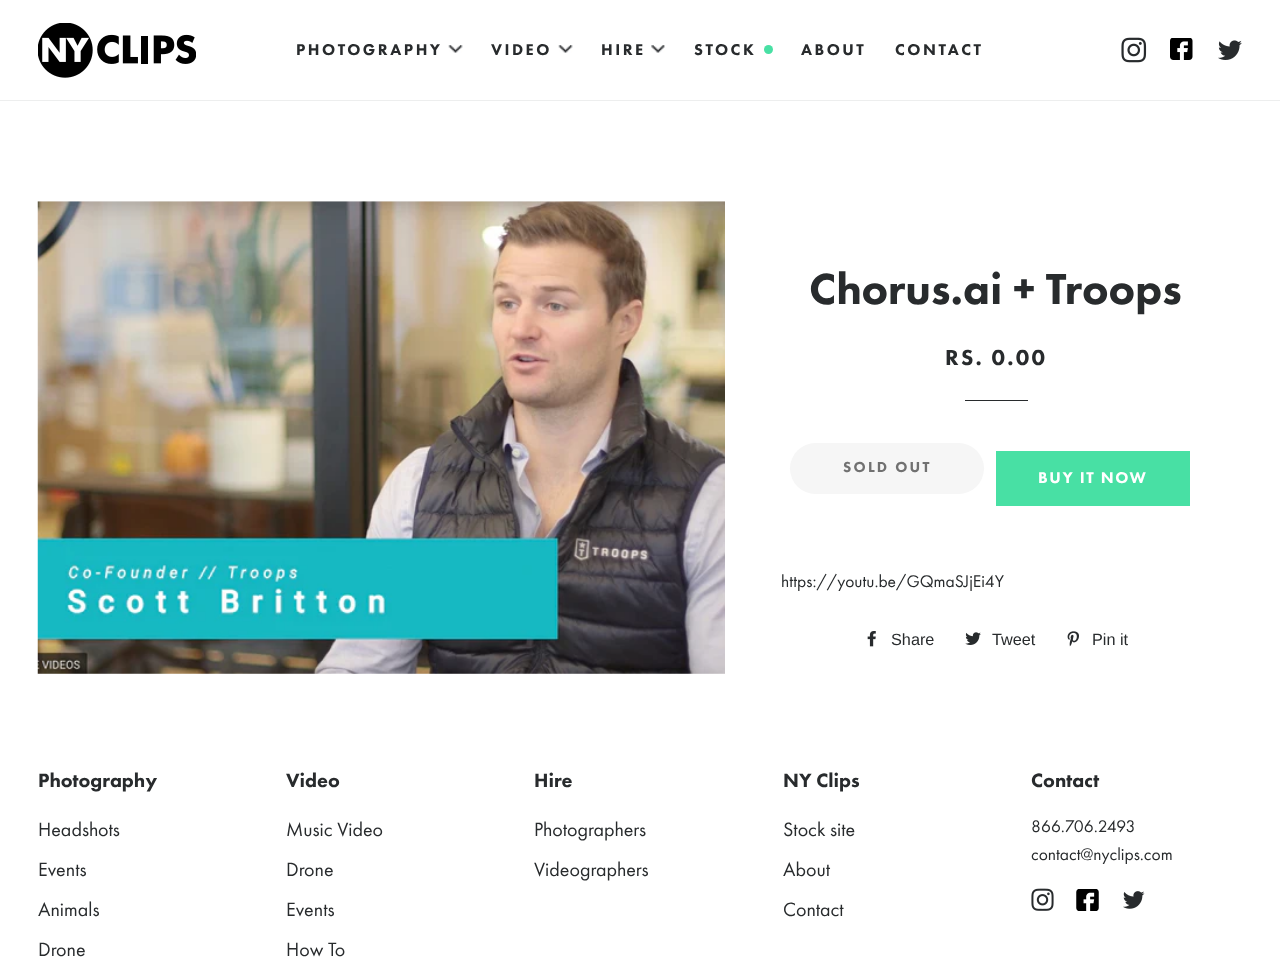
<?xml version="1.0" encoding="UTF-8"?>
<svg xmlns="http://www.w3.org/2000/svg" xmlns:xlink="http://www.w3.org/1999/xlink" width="1280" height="976">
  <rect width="100%" height="100%" fill="#ffffff" />
  <rect y="100" width="1280" height="1" fill="#edeeee" />
  <image x="38" y="23" width="158" height="55" xlink:href="image1.png" />
  <image x="448" y="45" width="15" height="8" xlink:href="image2.png" />
  <image x="558" y="45" width="15" height="8" xlink:href="image3.png" />
  <image x="651" y="45" width="14" height="8" xlink:href="image4.png" />
  <circle cx="768.5" cy="49.5" r="4.5" fill="#48e0a4" />
  <image x="1121" y="37" width="26" height="26" xlink:href="image5.png" />
  <image x="1170" y="38" width="23" height="22" xlink:href="image6.png" />
  <image x="1218" y="40" width="24" height="20" xlink:href="image7.png" />
  <rect x="38" y="201" width="687" height="473" fill="#f7f7f7" />
  <image x="37" y="201" width="688" height="473" xlink:href="image8.png" />
  <rect x="965" y="400" width="63" height="1" fill="#282b2d" />
  <rect x="790" y="443" width="194" height="51" rx="25.5" fill="#f6f6f6" />
  <rect x="996" y="451" width="194" height="55" fill="#48e0a4" />
  <image x="867" y="631" width="9" height="16" xlink:href="image9.png" />
  <image x="965" y="632" width="16" height="13" xlink:href="image10.png" />
  <image x="1067" y="631" width="12" height="16" xlink:href="image11.png" />
  <image x="1031" y="888" width="23" height="23" xlink:href="image12.png" />
  <image x="1076" y="889" width="23" height="22" xlink:href="image13.png" />
  <image x="1123" y="891" width="22" height="18" xlink:href="image14.png" />
  <text x="296" y="55" style="font-family: Futura PT; font-size: 16.25px; font-weight: 900; letter-spacing: 2.5px; fill: #282b2d">PHOTOGRAPHY</text>
  <text x="491" y="55" style="font-family: Futura PT; font-size: 16.25px; font-weight: 900; letter-spacing: 2.5px; fill: #282b2d">VIDEO</text>
  <text x="601" y="55" style="font-family: Futura PT; font-size: 16.25px; font-weight: 900; letter-spacing: 2.5px; fill: #282b2d">HIRE</text>
  <text x="694" y="55" style="font-family: Futura PT; font-size: 16.25px; font-weight: 900; letter-spacing: 2.5px; fill: #282b2d">STOCK</text>
  <text x="801" y="55" style="font-family: Futura PT; font-size: 16.25px; font-weight: 900; letter-spacing: 2.5px; fill: #282b2d">ABOUT</text>
  <text x="895" y="55" style="font-family: Futura PT; font-size: 16.25px; font-weight: 900; letter-spacing: 2.5px; fill: #282b2d">CONTACT</text>
  <text x="809" y="304" style="font-family: Futura PT; font-size: 45px; font-weight: 900; fill: #282b2d">Chorus.ai + Troops</text>
  <text x="945" y="365" style="font-family: Futura PT; font-size: 22.5px; font-weight: 900; letter-spacing: 2.25px; fill: #282b2d">RS. 0.00</text>
  <text x="843" y="472" style="font-family: Futura PT; font-size: 15px; font-weight: 900; letter-spacing: 2.25px; fill: #717171">SOLD OUT</text>
  <text x="1038" y="483" style="font-family: Futura PT; font-size: 16.25px; font-weight: 900; letter-spacing: 1.6px; fill: #ffffff">BUY IT NOW</text>
  <text x="781" y="587" style="font-family: Futura PT; font-size: 17.5px; fill: #282b2d">https://youtu.be/GQmaSJjEi4Y</text>
  <text x="891" y="645" style="font-family: Liberation Sans; font-size: 16.25px; fill: #282b2d">Share</text>
  <text x="992" y="645" style="font-family: Liberation Sans; font-size: 16.25px; fill: #282b2d">Tweet</text>
  <text x="1092" y="645" style="font-family: Liberation Sans; font-size: 16.25px; fill: #282b2d">Pin it</text>
  <text x="38" y="787" style="font-family: Futura PT; font-size: 20px; font-weight: 900; fill: #282b2d">Photography</text>
  <text x="38" y="836" style="font-family: Futura PT; font-size: 20px; fill: #282b2d">Headshots</text>
  <text x="38" y="876" style="font-family: Futura PT; font-size: 20px; fill: #282b2d">Events</text>
  <text x="38" y="916" style="font-family: Futura PT; font-size: 20px; fill: #282b2d">Animals</text>
  <text x="38" y="956" style="font-family: Futura PT; font-size: 20px; fill: #282b2d">Drone</text>
  <text x="286" y="787" style="font-family: Futura PT; font-size: 20px; font-weight: 900; fill: #282b2d">Video</text>
  <text x="286" y="836" style="font-family: Futura PT; font-size: 20px; fill: #282b2d">Music Video</text>
  <text x="286" y="876" style="font-family: Futura PT; font-size: 20px; fill: #282b2d">Drone</text>
  <text x="286" y="916" style="font-family: Futura PT; font-size: 20px; fill: #282b2d">Events</text>
  <text x="286" y="956" style="font-family: Futura PT; font-size: 20px; fill: #282b2d">How To</text>
  <text x="534" y="787" style="font-family: Futura PT; font-size: 20px; font-weight: 900; fill: #282b2d">Hire</text>
  <text x="534" y="836" style="font-family: Futura PT; font-size: 20px; fill: #282b2d">Photographers</text>
  <text x="534" y="876" style="font-family: Futura PT; font-size: 20px; fill: #282b2d">Videographers</text>
  <text x="783" y="787" style="font-family: Futura PT; font-size: 20px; font-weight: 900; fill: #282b2d">NY Clips</text>
  <text x="783" y="836" style="font-family: Futura PT; font-size: 20px; fill: #282b2d">Stock site</text>
  <text x="783" y="876" style="font-family: Futura PT; font-size: 20px; fill: #282b2d">About</text>
  <text x="783" y="916" style="font-family: Futura PT; font-size: 20px; fill: #282b2d">Contact</text>
  <text x="1031" y="787" style="font-family: Futura PT; font-size: 20px; font-weight: 900; fill: #282b2d">Contact</text>
  <text x="1031" y="832" style="font-family: Futura PT; font-size: 17.5px; fill: #282b2d">866.706.2493</text>
  <text x="1031" y="860" style="font-family: Futura PT; font-size: 17.5px; fill: #282b2d">contact@nyclips.com</text>
</svg>
